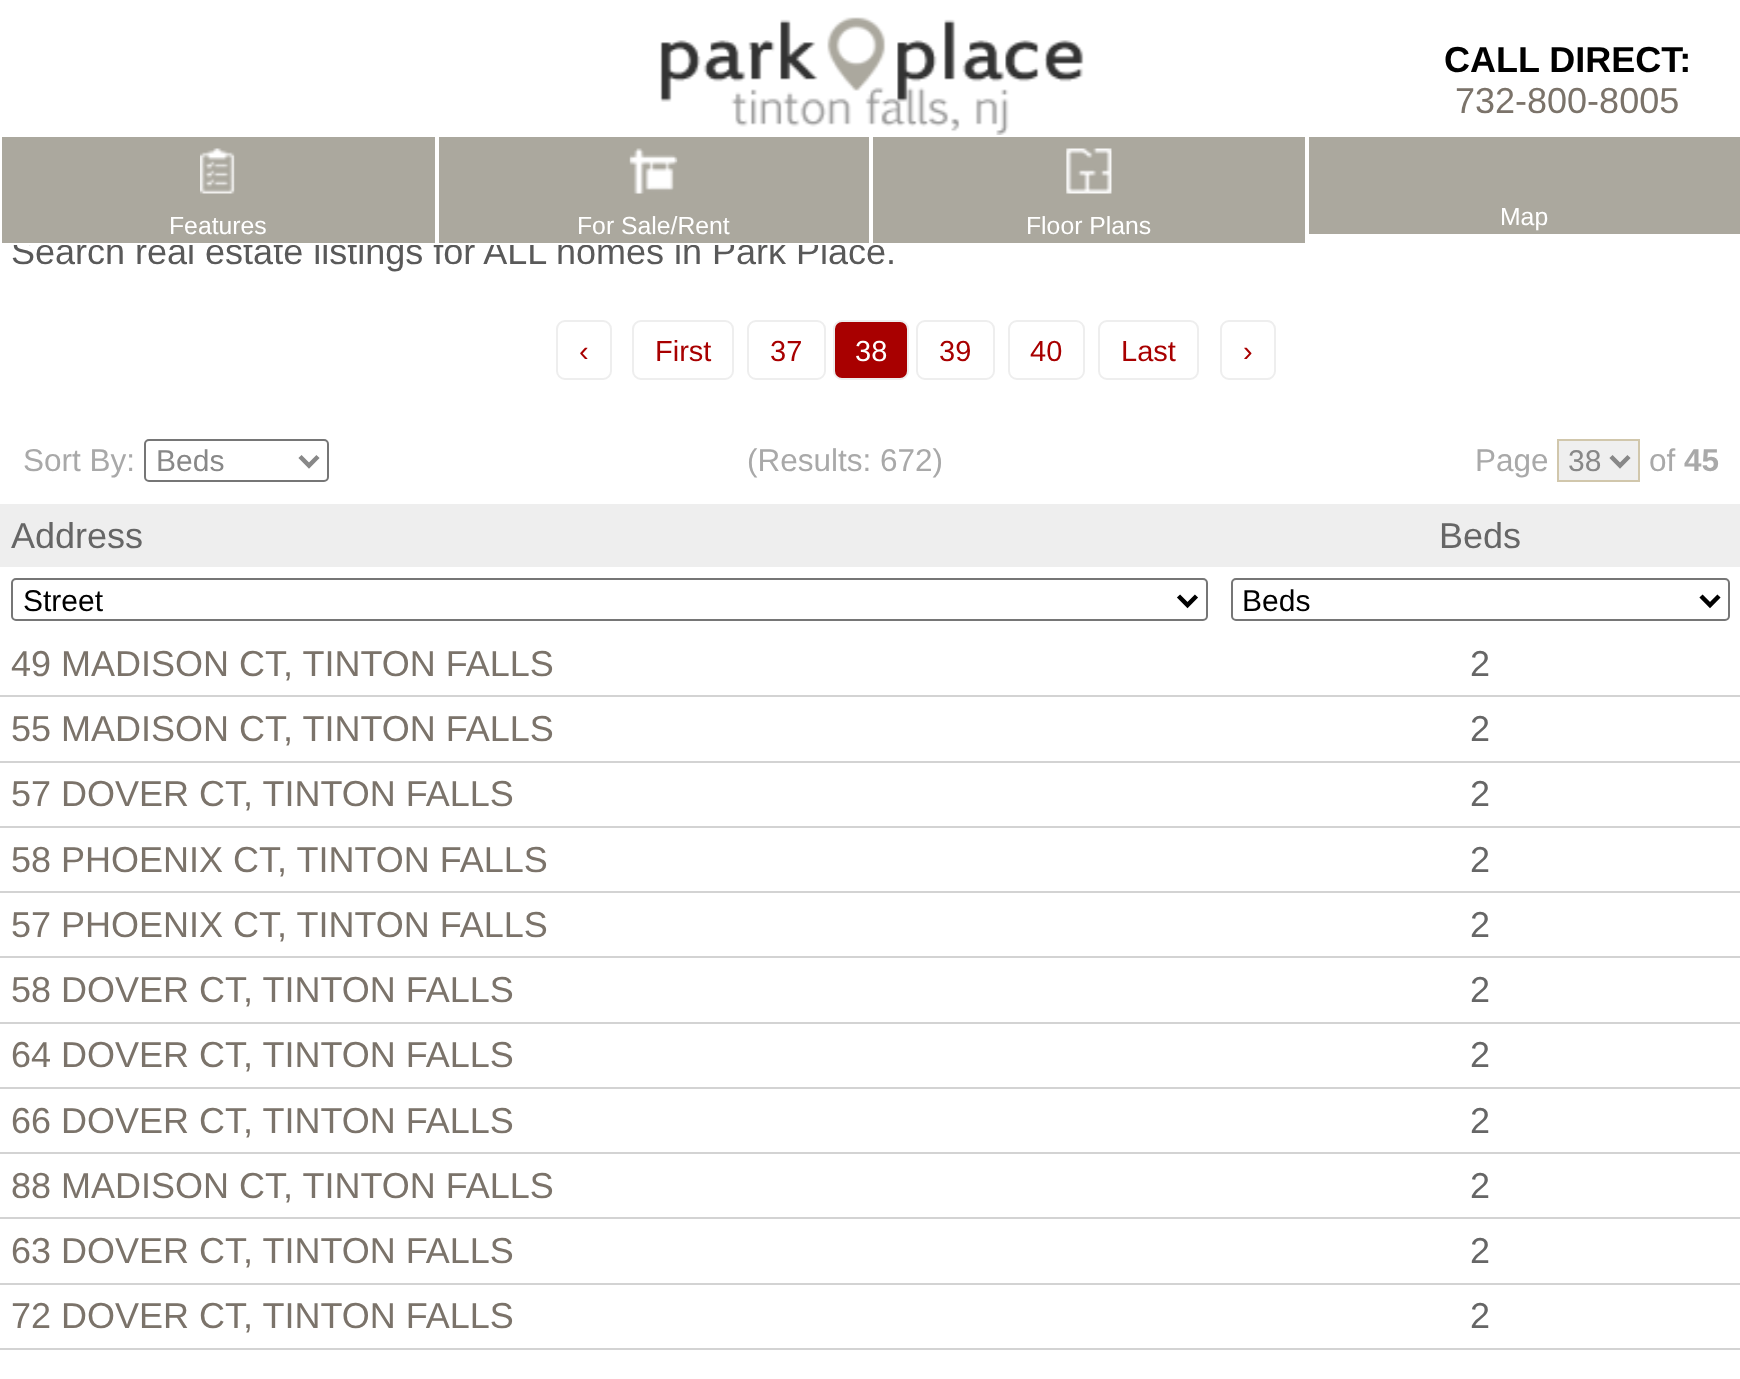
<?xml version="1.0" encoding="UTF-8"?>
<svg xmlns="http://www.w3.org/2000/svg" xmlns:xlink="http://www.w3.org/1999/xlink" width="1740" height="1379">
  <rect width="100%" height="100%" fill="#ffffff" />
  <image x="660" y="17" width="424" height="118" xlink:href="image1.png" />
  <rect x="1309" y="137" width="431" height="97" fill="#aba89e" />
  <rect x="557" y="321" width="54" height="58" rx="8" fill="none" stroke="#eeeeee" stroke-width="2" />
  <rect x="633" y="321" width="100" height="58" rx="8" fill="none" stroke="#eeeeee" stroke-width="2" />
  <rect x="748" y="321" width="77" height="58" rx="8" fill="none" stroke="#eeeeee" stroke-width="2" />
  <rect x="834" y="321" width="74" height="58" rx="8" fill="#a80000" stroke="#eeeeee" stroke-width="2" />
  <rect x="917" y="321" width="77" height="58" rx="8" fill="none" stroke="#eeeeee" stroke-width="2" />
  <rect x="1009" y="321" width="75" height="58" rx="8" fill="none" stroke="#eeeeee" stroke-width="2" />
  <rect x="1099" y="321" width="99" height="58" rx="8" fill="none" stroke="#eeeeee" stroke-width="2" />
  <rect x="1221" y="321" width="54" height="58" rx="8" fill="none" stroke="#eeeeee" stroke-width="2" />
  <rect x="145" y="440" width="183" height="41" rx="4" fill="none" stroke="#767676" stroke-width="2" />
  <path d="M 300 456.5 l 9 9 l 9 -9" fill="none" stroke="#888888" stroke-width="4.5" />
  <rect x="1558" y="440" width="81" height="41" fill="#efefef" stroke="#d1c7ac" stroke-width="2" />
  <path d="M 1611 456.5 l 9 9 l 9 -9" fill="none" stroke="#888888" stroke-width="4.5" />
  <rect y="504" width="1740" height="63" fill="#eeeeee" />
  <rect x="12" y="579" width="1195" height="41" rx="4" fill="none" stroke="#767676" stroke-width="2" />
  <path d="M 1178.5 596 l 9 9 l 9 -9" fill="none" stroke="#000000" stroke-width="4.5" />
  <rect x="1232" y="579" width="497" height="41" rx="4" fill="none" stroke="#767676" stroke-width="2" />
  <path d="M 1701 596 l 9 9 l 9 -9" fill="none" stroke="#000000" stroke-width="4.5" />
  <rect y="695" width="1740" height="2" fill="#d3d3d3" />
  <rect y="761" width="1740" height="2" fill="#d3d3d3" />
  <rect y="826" width="1740" height="2" fill="#d3d3d3" />
  <rect y="891" width="1740" height="2" fill="#d3d3d3" />
  <rect y="956" width="1740" height="2" fill="#d3d3d3" />
  <rect y="1022" width="1740" height="2" fill="#d3d3d3" />
  <rect y="1087" width="1740" height="2" fill="#d3d3d3" />
  <rect y="1152" width="1740" height="2" fill="#d3d3d3" />
  <rect y="1217" width="1740" height="2" fill="#d3d3d3" />
  <rect y="1283" width="1740" height="2" fill="#d3d3d3" />
  <rect y="1348" width="1740" height="2" fill="#d3d3d3" />
  <text x="1444" y="72" style="font-family: Liberation Sans; font-size: 36px; font-weight: bold; fill: #000000">CALL DIRECT:</text>
  <text x="1455" y="113" style="font-family: Liberation Sans; font-size: 36px; fill: #7b736a">732-800-8005</text>
  <text x="1500" y="225" style="font-family: Liberation Sans; font-size: 24.75px; fill: #ffffff">Map</text>
  <text x="11" y="264" style="font-family: Liberation Sans; font-size: 36px; fill: #595959">Search real estate listings for ALL homes in Park Place.</text>
  <rect x="872" y="136" width="434" height="108" fill="#aba89e" stroke="#ffffff" stroke-width="2" />
  <text x="1026" y="234" style="font-family: Liberation Sans; font-size: 24.75px; fill: #ffffff">Floor Plans</text>
  <image x="1066" y="148" width="46" height="46" xlink:href="image4.png" />
  <rect x="438" y="136" width="432" height="108" fill="#aba89e" stroke="#ffffff" stroke-width="2" />
  <text x="577" y="234" style="font-family: Liberation Sans; font-size: 24.75px; fill: #ffffff">For Sale/Rent</text>
  <image x="629" y="148" width="49" height="46" xlink:href="image3.png" />
  <rect x="1" y="136" width="435" height="108" fill="#aba89e" stroke="#ffffff" stroke-width="2" />
  <text x="169" y="234" style="font-family: Liberation Sans; font-size: 24.75px; fill: #ffffff">Features</text>
  <image x="200" y="148" width="35" height="46" xlink:href="image2.png" />
  <text x="579" y="361" style="font-family: Liberation Sans; font-size: 29px; fill: #a80000">‹</text>
  <text x="655" y="361" style="font-family: Liberation Sans; font-size: 29px; fill: #a80000">First</text>
  <text x="770" y="361" style="font-family: Liberation Sans; font-size: 29px; fill: #a80000">37</text>
  <text x="855" y="361" style="font-family: Liberation Sans; font-size: 29px; fill: #ffffff">38</text>
  <text x="939" y="361" style="font-family: Liberation Sans; font-size: 29px; fill: #a80000">39</text>
  <text x="1030" y="361" style="font-family: Liberation Sans; font-size: 29px; fill: #a80000">40</text>
  <text x="1121" y="361" style="font-family: Liberation Sans; font-size: 29px; fill: #a80000">Last</text>
  <text x="1243" y="361" style="font-family: Liberation Sans; font-size: 29px; fill: #a80000">›</text>
  <text x="23" y="471" style="font-family: Liberation Sans; font-size: 31.5px; fill: #a9a9a9">Sort By:</text>
  <text x="156" y="471" style="font-family: Liberation Sans; font-size: 30px; fill: #888888">Beds</text>
  <text x="747" y="471" style="font-family: Liberation Sans; font-size: 31.5px; fill: #a9a9a9">(Results: 672)</text>
  <text x="1475" y="471" style="font-family: Liberation Sans; font-size: 31.5px; fill: #a9a9a9">Page</text>
  <text x="1568" y="471" style="font-family: Liberation Sans; font-size: 30px; fill: #888888">38</text>
  <text x="1649" y="471" style="font-family: Liberation Sans; font-size: 31.5px; fill: #a9a9a9">of</text>
  <text x="1684" y="471" style="font-family: Liberation Sans; font-size: 31.5px; font-weight: bold; fill: #a9a9a9">45</text>
  <text x="11" y="548" style="font-family: Liberation Sans; font-size: 36px; fill: #666666">Address</text>
  <text x="1439" y="548" style="font-family: Liberation Sans; font-size: 36px; fill: #666666">Beds</text>
  <text x="23" y="611" style="font-family: Liberation Sans; font-size: 30px; fill: #000000">Street</text>
  <text x="1242" y="611" style="font-family: Liberation Sans; font-size: 30px; fill: #000000">Beds</text>
  <text x="11" y="676" style="font-family: Liberation Sans; font-size: 36px; fill: #7b736a">49 MADISON CT, TINTON FALLS</text>
  <text x="1470" y="676" style="font-family: Liberation Sans; font-size: 36px; fill: #666666">2</text>
  <text x="11" y="741" style="font-family: Liberation Sans; font-size: 36px; fill: #7b736a">55 MADISON CT, TINTON FALLS</text>
  <text x="1470" y="741" style="font-family: Liberation Sans; font-size: 36px; fill: #666666">2</text>
  <text x="11" y="806" style="font-family: Liberation Sans; font-size: 36px; fill: #7b736a">57 DOVER CT, TINTON FALLS</text>
  <text x="1470" y="806" style="font-family: Liberation Sans; font-size: 36px; fill: #666666">2</text>
  <text x="11" y="872" style="font-family: Liberation Sans; font-size: 36px; fill: #7b736a">58 PHOENIX CT, TINTON FALLS</text>
  <text x="1470" y="872" style="font-family: Liberation Sans; font-size: 36px; fill: #666666">2</text>
  <text x="11" y="937" style="font-family: Liberation Sans; font-size: 36px; fill: #7b736a">57 PHOENIX CT, TINTON FALLS</text>
  <text x="1470" y="937" style="font-family: Liberation Sans; font-size: 36px; fill: #666666">2</text>
  <text x="11" y="1002" style="font-family: Liberation Sans; font-size: 36px; fill: #7b736a">58 DOVER CT, TINTON FALLS</text>
  <text x="1470" y="1002" style="font-family: Liberation Sans; font-size: 36px; fill: #666666">2</text>
  <text x="11" y="1067" style="font-family: Liberation Sans; font-size: 36px; fill: #7b736a">64 DOVER CT, TINTON FALLS</text>
  <text x="1470" y="1067" style="font-family: Liberation Sans; font-size: 36px; fill: #666666">2</text>
  <text x="11" y="1133" style="font-family: Liberation Sans; font-size: 36px; fill: #7b736a">66 DOVER CT, TINTON FALLS</text>
  <text x="1470" y="1133" style="font-family: Liberation Sans; font-size: 36px; fill: #666666">2</text>
  <text x="11" y="1198" style="font-family: Liberation Sans; font-size: 36px; fill: #7b736a">88 MADISON CT, TINTON FALLS</text>
  <text x="1470" y="1198" style="font-family: Liberation Sans; font-size: 36px; fill: #666666">2</text>
  <text x="11" y="1263" style="font-family: Liberation Sans; font-size: 36px; fill: #7b736a">63 DOVER CT, TINTON FALLS</text>
  <text x="1470" y="1263" style="font-family: Liberation Sans; font-size: 36px; fill: #666666">2</text>
  <text x="11" y="1328" style="font-family: Liberation Sans; font-size: 36px; fill: #7b736a">72 DOVER CT, TINTON FALLS</text>
  <text x="1470" y="1328" style="font-family: Liberation Sans; font-size: 36px; fill: #666666">2</text>
</svg>
